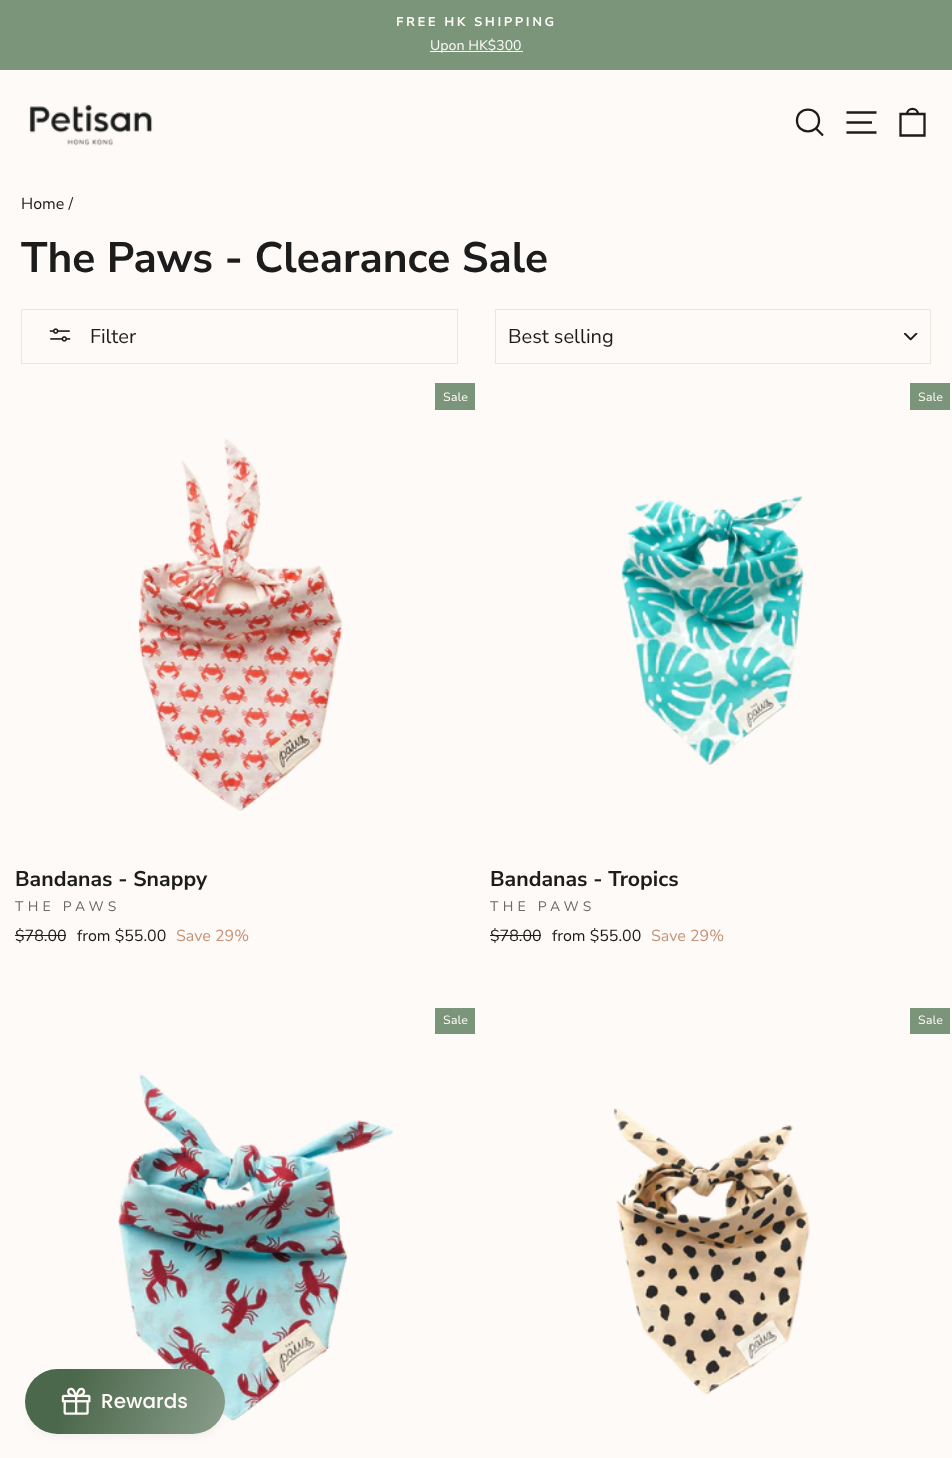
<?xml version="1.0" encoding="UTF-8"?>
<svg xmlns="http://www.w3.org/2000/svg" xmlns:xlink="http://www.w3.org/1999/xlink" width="952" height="1458">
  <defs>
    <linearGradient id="g1" gradientUnits="userSpaceOnUse" x1="26" y1="1366" x2="304" y2="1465"><stop offset="0.17" stop-color="#4c684c" /><stop offset="1" stop-color="#abbaad" /></linearGradient>
  </defs>
  <rect width="100%" height="100%" fill="#fefaf7" />
  <rect width="952" height="70" fill="#7a957a" />
  <rect x="430" y="51" width="93" height="1" fill="#fefaf7" />
  <rect y="70" width="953" height="104" fill="#000000" fill-opacity="0.2" filter="blur(0.5px)" />
  <rect y="70" width="952" height="104" fill="#fefaf7" />
  <image x="29" y="104" width="124" height="42" xlink:href="image1.png" />
  <path d="M 819 120.5 c 0 14.5 -22 14.5 -22 0 c 0 -14.5 22 -14.5 22 0 z m 4 15 l -7 -7" fill="none" stroke="#1b1c1b" stroke-width="2.3" />
  <path d="M 846.5 112.5 h 30 m -30 10 h 25.5 m -25.5 10 h 30" fill="none" stroke="#1b1c1b" stroke-width="2.3" />
  <path d="M 900.5 114 h 24 v 21.5 h -24 z m 6.5 0.5 c 0 -7.5 11 -7.5 11 0" fill="none" stroke="#1b1c1b" stroke-width="2.3" />
  <rect x="21.5" y="309.5" width="436" height="54" fill="none" stroke="#e8e8e1" />
  <image x="49" y="328" width="22" height="14" xlink:href="image2.png" />
  <image x="904" y="333" width="14" height="8" xlink:href="image3.png" />
  <rect x="495.5" y="309.5" width="435" height="54" fill="none" stroke="#e8e8e1" />
  <rect x="435" y="383" width="40" height="27" fill="#7a957a" />
  <image x="138" y="438" width="205" height="373" xlink:href="image4.png" />
  <rect x="910" y="383" width="40" height="27" fill="#7a957a" />
  <image x="621" y="495" width="183" height="270" xlink:href="image5.png" />
  <rect x="435" y="1008" width="40" height="26" fill="#7a957a" />
  <image x="118" y="1073" width="276" height="348" xlink:href="image6.png" />
  <rect x="910" y="1008" width="40" height="26" fill="#7a957a" />
  <image x="613" y="1107" width="197" height="288" xlink:href="image7.png" />
  <rect x="28" y="1376" width="195" height="60" rx="30" fill="#444444" fill-opacity="0.08" filter="blur(5px)" />
  <rect x="25" y="1369" width="200" height="65" rx="32.5" fill="url(#g1)" />
  <image x="61" y="1387" width="30" height="28" xlink:href="image8.png" />
  <text x="396" y="26" style="font-family: 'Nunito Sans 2'; font-size: 12.7px; font-weight: bold; letter-spacing: 2.5px; fill: #fefaf7">FREE HK SHIPPING</text>
  <text x="430" y="50" style="font-family: 'Nunito Sans 2'; font-size: 14px; fill: #fefaf7">Upon HK$300</text>
  <text x="21" y="209" style="font-family: Nunito Sans; font-size: 16px; fill: #1b1c1b">Home /</text>
  <text x="21" y="272" style="font-family: Nunito Sans; font-size: 42.5px; font-weight: bold; fill: #1b1c1b">The Paws - Clearance Sale</text>
  <text x="90" y="343" style="font-family: Nunito Sans; font-size: 20px; fill: #1b1c1b">Filter</text>
  <text x="508" y="343" style="font-family: Nunito Sans; font-size: 20px; fill: #1b1c1b">Best selling</text>
  <text x="443" y="401" style="font-family: 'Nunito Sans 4'; font-size: 12px; fill: #fefaf7">Sale</text>
  <text x="15" y="886" style="font-family: Nunito Sans; font-size: 21.25px; font-weight: bold; fill: #1b1c1b">Bandanas - Snappy</text>
  <text x="15" y="911" style="font-family: 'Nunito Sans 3'; font-size: 13.75px; letter-spacing: 4.25px; fill: #6a6a68">THE PAWS</text>
  <text x="15" y="941" style="font-family: Nunito Sans; font-size: 16px; fill: #1b1c1b">$78.00</text>
  <rect x="15" y="935" width="51" height="1" fill="#1c1d1d" />
  <text x="77" y="941" style="font-family: Nunito Sans; font-size: 16px; fill: #1b1c1b">from $55.00</text>
  <text x="176" y="941" style="font-family: Nunito Sans; font-size: 16px; fill: #c49378">Save 29%</text>
  <text x="918" y="401" style="font-family: 'Nunito Sans 4'; font-size: 12px; fill: #fefaf7">Sale</text>
  <text x="490" y="886" style="font-family: Nunito Sans; font-size: 21.25px; font-weight: bold; fill: #1b1c1b">Bandanas - Tropics</text>
  <text x="490" y="911" style="font-family: 'Nunito Sans 3'; font-size: 13.75px; letter-spacing: 4.25px; fill: #6a6a68">THE PAWS</text>
  <text x="490" y="941" style="font-family: Nunito Sans; font-size: 16px; fill: #1b1c1b">$78.00</text>
  <rect x="490" y="935" width="51" height="1" fill="#1c1d1d" />
  <text x="552" y="941" style="font-family: Nunito Sans; font-size: 16px; fill: #1b1c1b">from $55.00</text>
  <text x="651" y="941" style="font-family: Nunito Sans; font-size: 16px; fill: #c49378">Save 29%</text>
  <text x="443" y="1024" style="font-family: 'Nunito Sans 4'; font-size: 12px; fill: #fefaf7">Sale</text>
  <text x="918" y="1024" style="font-family: 'Nunito Sans 4'; font-size: 12px; fill: #fefaf7">Sale</text>
  <text x="101" y="1408" style="font-family: Poppins; font-size: 20px; font-weight: 500; fill: #fefaf7">Rewards</text>
</svg>
